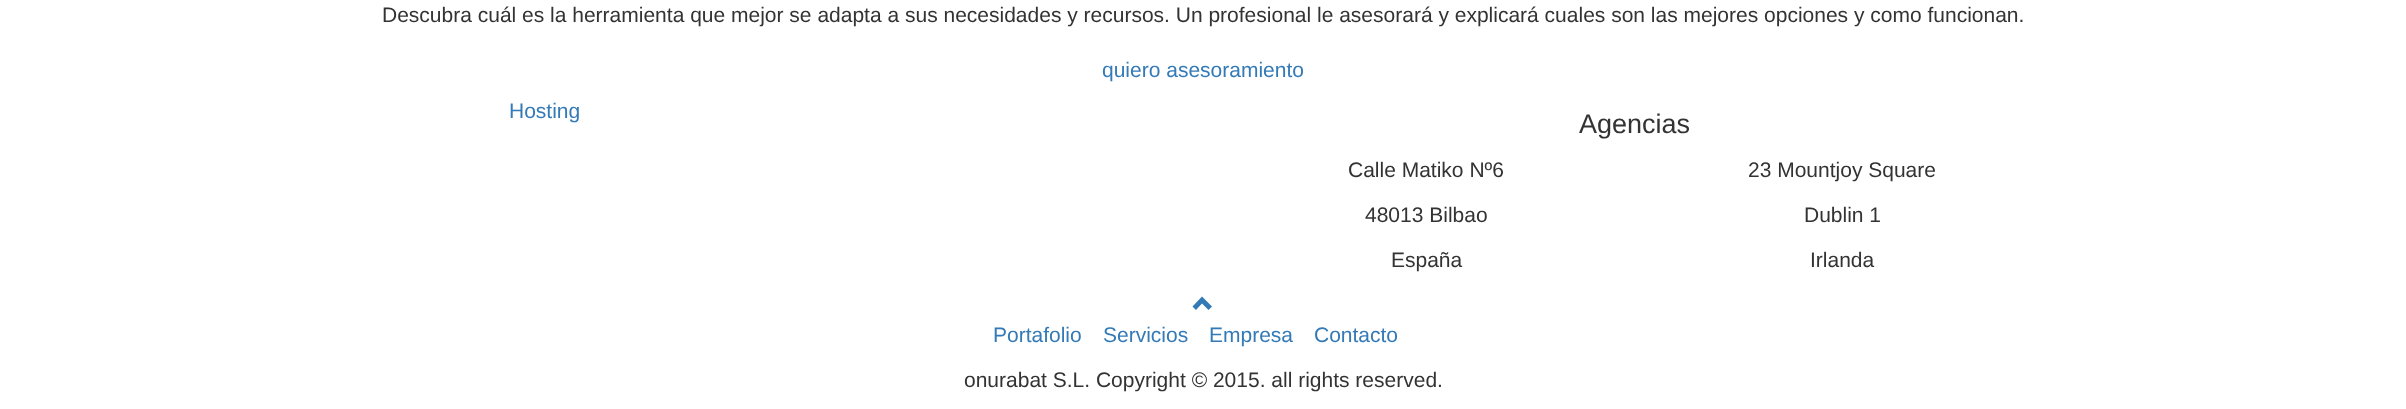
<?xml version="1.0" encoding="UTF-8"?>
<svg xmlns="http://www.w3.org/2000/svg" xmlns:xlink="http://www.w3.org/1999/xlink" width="2406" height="409">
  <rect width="100%" height="100%" fill="#ffffff" />
  <path d="M 1212 306.5 l -3.5 3.5 l -6.5 -6.5 l -6 6.5 l -3.5 -3.5 l 9.5 -10 z" fill="#337ab7" />
  <text x="382" y="22" style="font-family: Liberation Sans; font-size: 21px; fill: #333333">Descubra cuál es la herramienta que mejor se adapta a sus necesidades y recursos. Un profesional le asesorará y explicará cuales son las mejores opciones y como funcionan.</text>
  <text x="1102" y="77" style="font-family: Liberation Sans; font-size: 21px; fill: #337ab7">quiero asesoramiento</text>
  <text x="509" y="118" style="font-family: Liberation Sans; font-size: 21px; fill: #337ab7">Hosting</text>
  <text x="1579" y="133" style="font-family: Liberation Sans; font-size: 27px; fill: #333333">Agencias</text>
  <text x="1348" y="177" style="font-family: Liberation Sans; font-size: 21px; fill: #333333">Calle Matiko Nº6</text>
  <text x="1365" y="222" style="font-family: Liberation Sans; font-size: 21px; fill: #333333">48013 Bilbao</text>
  <text x="1391" y="267" style="font-family: Liberation Sans; font-size: 21px; fill: #333333">España</text>
  <text x="1748" y="177" style="font-family: Liberation Sans; font-size: 21px; fill: #333333">23 Mountjoy Square</text>
  <text x="1804" y="222" style="font-family: Liberation Sans; font-size: 21px; fill: #333333">Dublin 1</text>
  <text x="1810" y="267" style="font-family: Liberation Sans; font-size: 21px; fill: #333333">Irlanda</text>
  <text x="993" y="342" style="font-family: Liberation Sans; font-size: 21px; fill: #337ab7">Portafolio</text>
  <text x="1103" y="342" style="font-family: Liberation Sans; font-size: 21px; fill: #337ab7">Servicios</text>
  <text x="1209" y="342" style="font-family: Liberation Sans; font-size: 21px; fill: #337ab7">Empresa</text>
  <text x="1314" y="342" style="font-family: Liberation Sans; font-size: 21px; fill: #337ab7">Contacto</text>
  <text x="964" y="387" style="font-family: Liberation Sans; font-size: 21px; fill: #333333">onurabat S.L. Copyright © 2015. all rights reserved.</text>
</svg>
